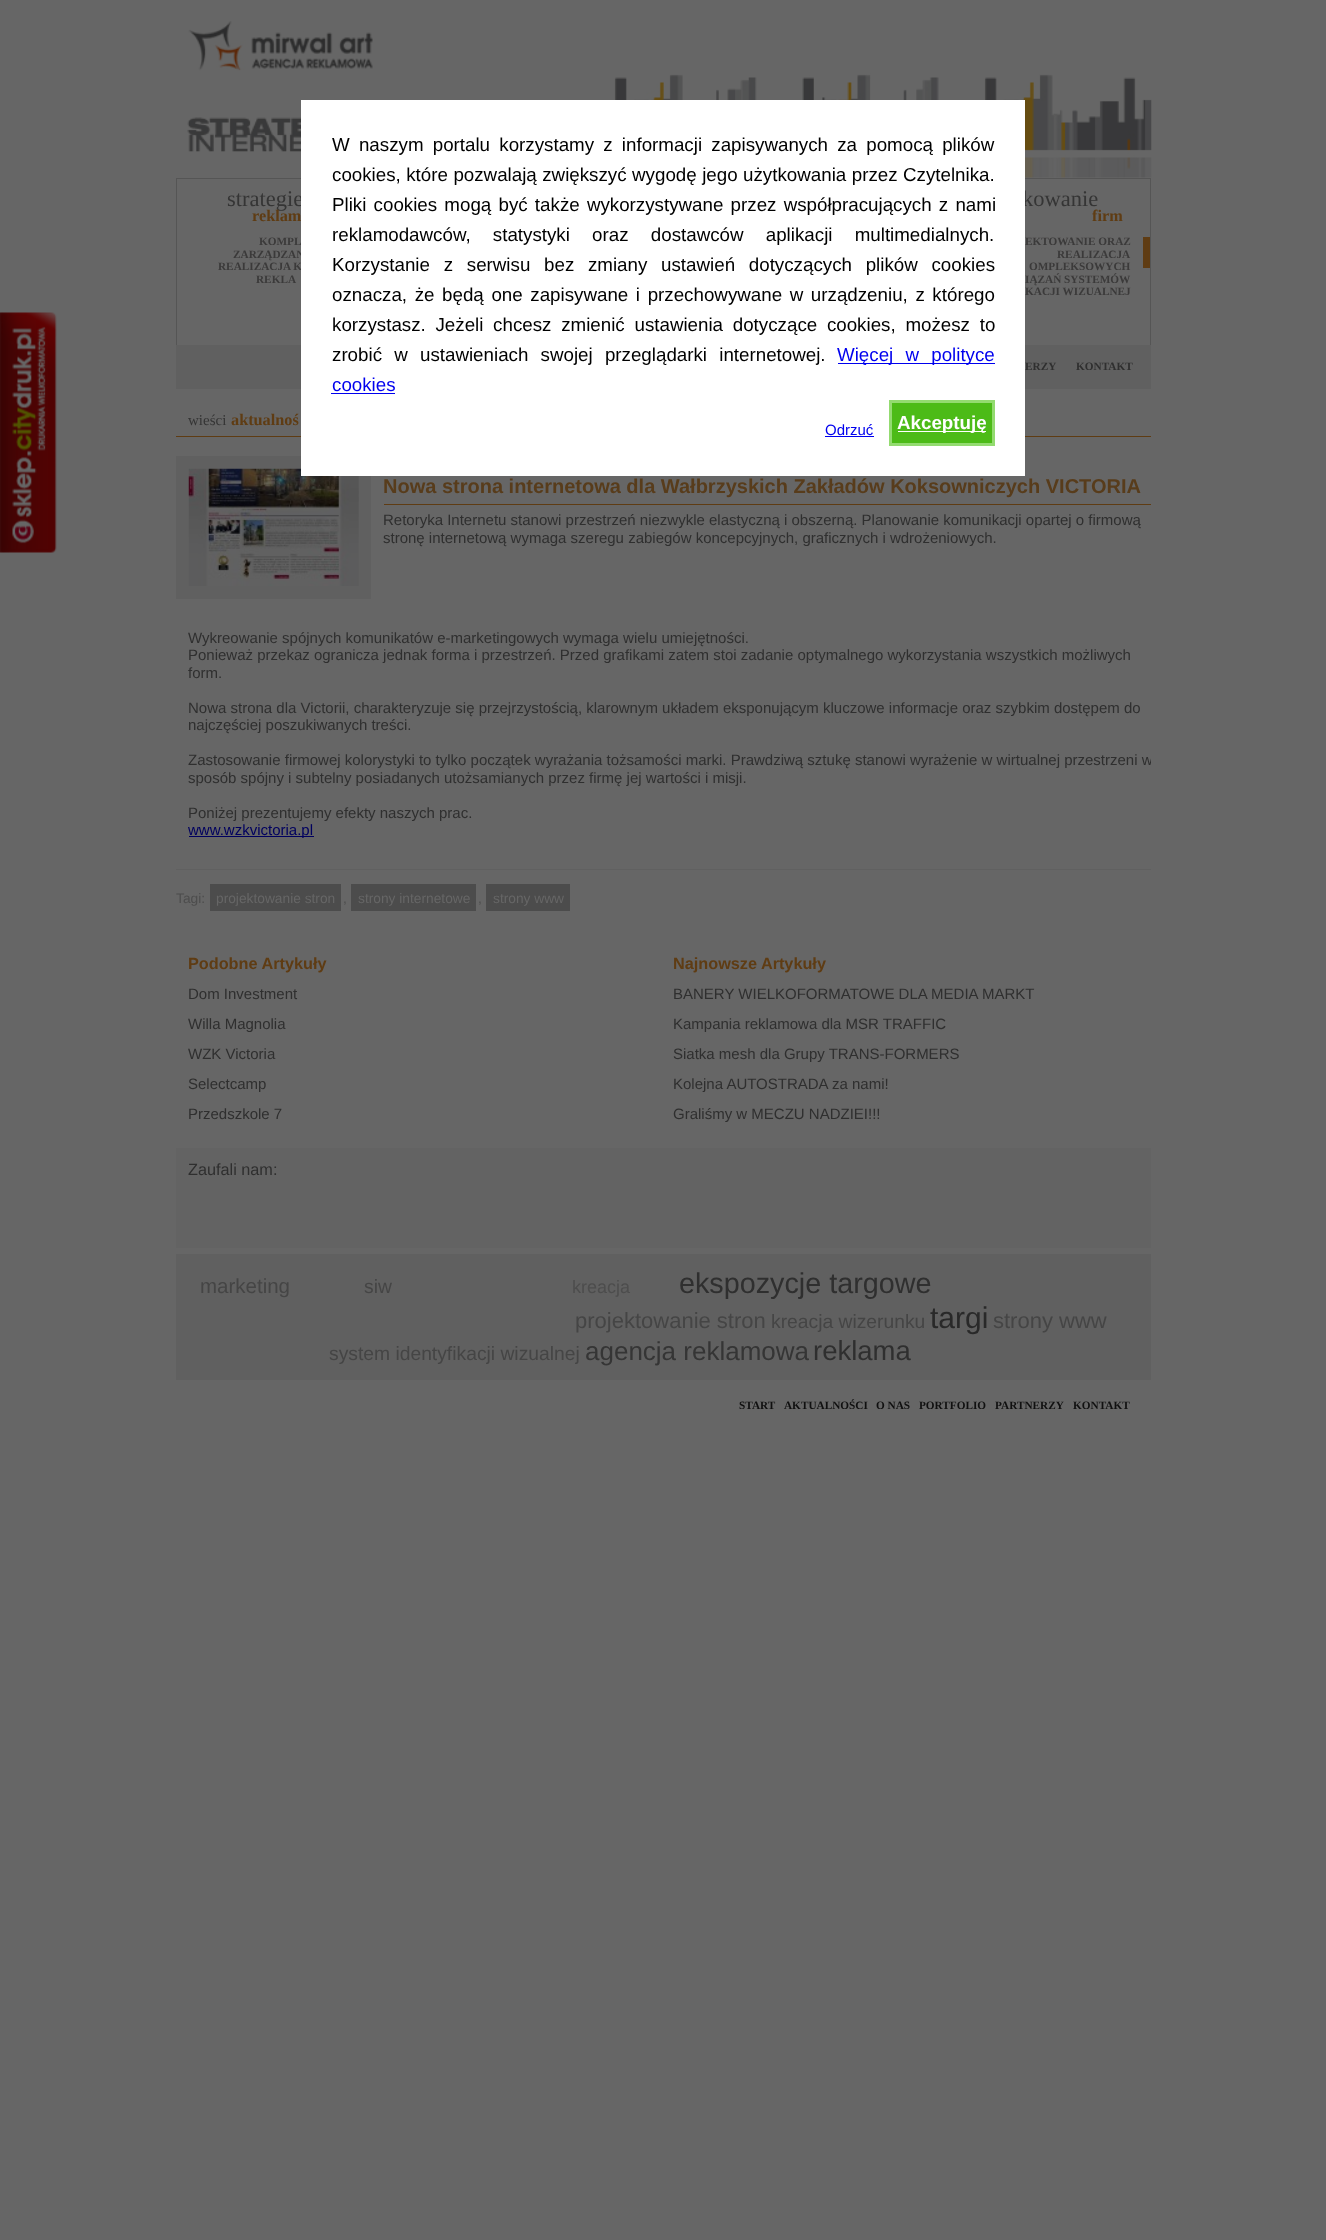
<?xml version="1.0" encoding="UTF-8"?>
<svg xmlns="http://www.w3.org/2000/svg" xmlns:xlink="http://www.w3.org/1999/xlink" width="1326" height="2240">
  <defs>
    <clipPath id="clip1"><rect x="176" y="456" width="975" height="413" /></clipPath>
  </defs>
  <rect width="100%" height="100%" fill="#666666" />
  <image x="0" y="312" width="57" height="241" xlink:href="image1.png" />
  <image x="187" y="21" width="965" height="157" xlink:href="image2.png" />
  <rect x="176.5" y="178.5" width="196" height="206" fill="none" stroke="#555555" />
  <rect x="1025" y="178" width="126" height="1" fill="#555555" />
  <rect x="1150" y="178" width="1" height="167" fill="#555555" />
  <rect x="1143" y="237" width="7" height="31" fill="#5f3c13" />
  <rect x="176" y="345" width="975" height="44" fill="#606060" />
  <rect x="176" y="436" width="975" height="1" fill="#5f3c13" />
  <rect x="176" y="869" width="975" height="1" fill="#606060" />
  <rect x="176" y="456" width="195" height="143" fill="#606060" />
  <image x="188" y="468" width="171" height="118" xlink:href="image3.png" />
  <rect x="384" y="504" width="767" height="1" fill="#5f3c13" />
  <rect x="189" y="836" width="125" height="1" fill="#00005f" />
  <rect x="210" y="884" width="131" height="27" fill="#4c4c4c" />
  <rect x="351" y="884" width="125" height="27" fill="#4c4c4c" />
  <rect x="486" y="884" width="84" height="27" fill="#4c4c4c" />
  <rect x="176" y="1148" width="975" height="100" fill="#636363" />
  <rect x="176" y="1254" width="975" height="126" fill="#606060" />
  <text x="227" y="206" style="font-family: Liberation Serif; font-size: 22.5px; fill: #353535">strategie</text>
  <text x="252" y="221" style="font-family: Liberation Serif; font-size: 16.25px; font-weight: bold; fill: #5f3c13">reklam</text>
  <text x="259" y="245" style="font-family: Liberation Serif; font-size: 11.25px; font-weight: bold; fill: #3b3a3a">KOMPL</text>
  <text x="233" y="258" style="font-family: Liberation Serif; font-size: 11.25px; font-weight: bold; fill: #3b3a3a">ZARZĄDZAN</text>
  <text x="218" y="270" style="font-family: Liberation Serif; font-size: 11.25px; font-weight: bold; fill: #3b3a3a">REALIZACJA K</text>
  <text x="256" y="283" style="font-family: Liberation Serif; font-size: 11.25px; font-weight: bold; fill: #3b3a3a">REKLA</text>
  <text x="1022" y="206" style="font-family: Liberation Serif; font-size: 22.5px; fill: #353535">kowanie</text>
  <rect x="301" y="100" width="724" height="376" fill="#ffffff" />
  <text x="825" y="435" style="font-family: Liberation Sans; font-size: 15px; fill: #0000ee">Odrzuć</text>
  <rect x="825" y="436" width="49" height="1" fill="#0000ee" />
  <rect x="890.5" y="401.5" width="103" height="43" fill="#4cbb17" stroke="#93db70" stroke-width="3" />
  <rect x="898" y="431" width="88" height="1" fill="#ffffff" />
  <text x="897" y="429" style="font-family: Liberation Sans; font-size: 18.75px; font-weight: bold; fill: #ffffff">Akceptuję</text>
  <text x="332" y="391" style="font-family: Liberation Sans; font-size: 18.75px; fill: #0000ee">cookies</text>
  <rect x="331" y="393" width="64" height="1" fill="#0000ee" />
  <rect x="838" y="363" width="157" height="1" fill="#0000ee" />
  <text x="837" y="361" word-spacing="7" style="font-family: Liberation Sans; font-size: 18.75px; fill: #0000ee">Więcej w polityce</text>
  <text x="332" y="361" word-spacing="7" style="font-family: Liberation Sans; font-size: 18.75px; fill: #000000">zrobić w ustawieniach swojej przeglądarki internetowej.</text>
  <text x="332" y="331" word-spacing="4.5" style="font-family: Liberation Sans; font-size: 18.75px; fill: #000000">korzystasz. Jeżeli chcesz zmienić ustawienia dotyczące cookies, możesz to</text>
  <text x="332" y="301" word-spacing="2.4" style="font-family: Liberation Sans; font-size: 18.75px; fill: #000000">oznacza, że będą one zapisywane i przechowywane w urządzeniu, z którego</text>
  <text x="332" y="271" word-spacing="8.5" style="font-family: Liberation Sans; font-size: 18.75px; fill: #000000">Korzystanie z serwisu bez zmiany ustawień dotyczących plików cookies</text>
  <text x="332" y="241" word-spacing="17" style="font-family: Liberation Sans; font-size: 18.75px; fill: #000000">reklamodawców, statystyki oraz dostawców aplikacji multimedialnych.</text>
  <text x="332" y="211" word-spacing="2" style="font-family: Liberation Sans; font-size: 18.75px; fill: #000000">Pliki cookies mogą być także wykorzystywane przez współpracujących z nami</text>
  <text x="332" y="181" word-spacing="0.25" style="font-family: Liberation Sans; font-size: 18.75px; fill: #000000">cookies, które pozwalają zwiększyć wygodę jego użytkowania przez Czytelnika.</text>
  <text x="332" y="151" word-spacing="4" style="font-family: Liberation Sans; font-size: 18.75px; fill: #000000">W naszym portalu korzystamy z informacji zapisywanych za pomocą plików</text>
  <text x="1092" y="221" style="font-family: Liberation Serif; font-size: 16.25px; font-weight: bold; fill: #5f3c13">firm</text>
  <text x="1025" y="245" style="font-family: Liberation Serif; font-size: 11.25px; font-weight: bold; fill: #3b3a3a">EKTOWANIE ORAZ</text>
  <text x="1057" y="258" style="font-family: Liberation Serif; font-size: 11.25px; font-weight: bold; fill: #3b3a3a">REALIZACJA</text>
  <text x="1029" y="270" style="font-family: Liberation Serif; font-size: 11.25px; font-weight: bold; fill: #3b3a3a">OMPLEKSOWYCH</text>
  <text x="1025" y="283" style="font-family: Liberation Serif; font-size: 11.25px; font-weight: bold; fill: #3b3a3a">IĄZAŃ SYSTEMÓW</text>
  <text x="1025" y="295" style="font-family: Liberation Serif; font-size: 11.25px; font-weight: bold; fill: #3b3a3a">KACJI WIZUALNEJ</text>
  <text x="1025" y="370" style="font-family: Liberation Serif; font-size: 11.25px; font-weight: bold; fill: #2f2f2f">ERZY</text>
  <text x="1076" y="370" style="font-family: Liberation Serif; font-size: 11.25px; font-weight: bold; fill: #2f2f2f">KONTAKT</text>
  <text x="188" y="425" style="font-family: Liberation Serif; font-size: 15px; fill: #353535">wieści</text>
  <text x="231" y="425" style="font-family: Liberation Serif; font-size: 16.25px; font-weight: bold; fill: #5f3c13">aktualnoś</text>
  <text x="383" y="493" style="font-family: Liberation Sans; font-size: 20px; font-weight: bold; fill: #583c1b">Nowa strona internetowa dla Wałbrzyskich Zakładów Koksowniczych VICTORIA</text>
  <text x="383" y="525" style="font-family: Liberation Sans; font-size: 15px; fill: #2f2f2f">Retoryka Internetu stanowi przestrzeń niezwykle elastyczną i obszerną. Planowanie komunikacji opartej o firmową</text>
  <text x="383" y="543" style="font-family: Liberation Sans; font-size: 15px; fill: #2f2f2f">stronę internetową wymaga szeregu zabiegów koncepcyjnych, graficznych i wdrożeniowych.</text>
  <text x="188" y="643" style="font-family: Liberation Sans; font-size: 15px; fill: #2f2f2f">Wykreowanie spójnych komunikatów e-marketingowych wymaga wielu umiejętności.</text>
  <text x="188" y="660" style="font-family: Liberation Sans; font-size: 15px; fill: #2f2f2f">Ponieważ przekaz ogranicza jednak forma i przestrzeń. Przed grafikami zatem stoi zadanie optymalnego wykorzystania wszystkich możliwych</text>
  <text x="188" y="678" style="font-family: Liberation Sans; font-size: 15px; fill: #2f2f2f">form.</text>
  <text x="188" y="713" style="font-family: Liberation Sans; font-size: 15px; fill: #2f2f2f">Nowa strona dla Victorii, charakteryzuje się przejrzystością, klarownym układem eksponującym kluczowe informacje oraz szybkim dostępem do</text>
  <text x="188" y="730" style="font-family: Liberation Sans; font-size: 15px; fill: #2f2f2f">najczęściej poszukiwanych treści.</text>
  <g clip-path="url(#clip1)">
    <text x="188" y="765" style="font-family: Liberation Sans; font-size: 15px; fill: #2f2f2f">Zastosowanie firmowej kolorystyki to tylko początek wyrażania tożsamości marki. Prawdziwą sztukę stanowi wyrażenie w wirtualnej przestrzeni w</text>
  </g>
  <text x="188" y="783" style="font-family: Liberation Sans; font-size: 15px; fill: #2f2f2f">sposób spójny i subtelny posiadanych utożsamianych przez firmę jej wartości i misji.</text>
  <text x="188" y="818" style="font-family: Liberation Sans; font-size: 15px; fill: #2f2f2f">Poniżej prezentujemy efekty naszych prac.</text>
  <text x="188" y="835" style="font-family: Liberation Sans; font-size: 15px; fill: #00005f">www.wzkvictoria.pl</text>
  <text x="176" y="903" style="font-family: Liberation Sans; font-size: 13.75px; fill: #4d4d4d">Tagi:</text>
  <text x="216" y="903" style="font-family: Liberation Sans; font-size: 13.75px; fill: #666666">projektowanie stron</text>
  <text x="343" y="903" style="font-family: Liberation Sans; font-size: 13.75px; fill: #4d4d4d">,</text>
  <text x="358" y="903" style="font-family: Liberation Sans; font-size: 13.75px; fill: #666666">strony internetowe</text>
  <text x="478" y="903" style="font-family: Liberation Sans; font-size: 13.75px; fill: #4d4d4d">,</text>
  <text x="493" y="903" style="font-family: Liberation Sans; font-size: 13.75px; fill: #666666">strony www</text>
  <text x="188" y="969" style="font-family: Liberation Sans; font-size: 16.25px; font-weight: bold; fill: #5f3c13">Podobne Artykuły</text>
  <text x="188" y="999" style="font-family: Liberation Sans; font-size: 15px; fill: #2f2f2f">Dom Investment</text>
  <text x="188" y="1029" style="font-family: Liberation Sans; font-size: 15px; fill: #2f2f2f">Willa Magnolia</text>
  <text x="188" y="1059" style="font-family: Liberation Sans; font-size: 15px; fill: #2f2f2f">WZK Victoria</text>
  <text x="188" y="1089" style="font-family: Liberation Sans; font-size: 15px; fill: #2f2f2f">Selectcamp</text>
  <text x="188" y="1119" style="font-family: Liberation Sans; font-size: 15px; fill: #2f2f2f">Przedszkole 7</text>
  <text x="673" y="969" style="font-family: Liberation Sans; font-size: 16.25px; font-weight: bold; fill: #5f3c13">Najnowsze Artykuły</text>
  <text x="673" y="999" style="font-family: Liberation Sans; font-size: 15px; fill: #2f2f2f">BANERY WIELKOFORMATOWE DLA MEDIA MARKT</text>
  <text x="673" y="1029" style="font-family: Liberation Sans; font-size: 15px; fill: #2f2f2f">Kampania reklamowa dla MSR TRAFFIC</text>
  <text x="673" y="1059" style="font-family: Liberation Sans; font-size: 15px; fill: #2f2f2f">Siatka mesh dla Grupy TRANS-FORMERS</text>
  <text x="673" y="1089" style="font-family: Liberation Sans; font-size: 15px; fill: #2f2f2f">Kolejna AUTOSTRADA za nami!</text>
  <text x="673" y="1119" style="font-family: Liberation Sans; font-size: 15px; fill: #2f2f2f">Graliśmy w MECZU NADZIEI!!!</text>
  <text x="188" y="1175" style="font-family: Liberation Sans; font-size: 16.25px; fill: #2f2f2f">Zaufali nam:</text>
  <text x="200" y="1293" style="font-family: Liberation Sans; font-size: 20.5px; fill: #454545">marketing</text>
  <text x="364" y="1293" style="font-family: Liberation Sans; font-size: 19.3px; fill: #454545">siw</text>
  <text x="572" y="1293" style="font-family: Liberation Sans; font-size: 18px; fill: #4d4d4d">kreacja</text>
  <text x="679" y="1293" style="font-family: Liberation Sans; font-size: 28.75px; fill: #2f2f2f">ekspozycje targowe</text>
  <text x="575" y="1328" style="font-family: Liberation Sans; font-size: 22px; fill: #454545">projektowanie stron</text>
  <text x="771" y="1328" style="font-family: Liberation Sans; font-size: 19.3px; fill: #454545">kreacja wizerunku</text>
  <text x="930" y="1328" style="font-family: Liberation Sans; font-size: 30px; fill: #292929">targi</text>
  <text x="993" y="1328" style="font-family: Liberation Sans; font-size: 22px; fill: #454545">strony www</text>
  <text x="329" y="1360" style="font-family: Liberation Sans; font-size: 19.3px; fill: #454545">system identyfikacji wizualnej</text>
  <text x="585" y="1360" style="font-family: Liberation Sans; font-size: 26px; fill: #353535">agencja reklamowa</text>
  <text x="813" y="1360" style="font-family: Liberation Sans; font-size: 27.5px; fill: #2f2f2f">reklama</text>
  <text x="739" y="1409" style="font-family: Liberation Serif; font-size: 11.25px; font-weight: bold; fill: #101010">START</text>
  <text x="784" y="1409" style="font-family: Liberation Serif; font-size: 11.25px; font-weight: bold; fill: #101010">AKTUALNOŚCI</text>
  <text x="876" y="1409" style="font-family: Liberation Serif; font-size: 11.25px; font-weight: bold; fill: #101010">O NAS</text>
  <text x="919" y="1409" style="font-family: Liberation Serif; font-size: 11.25px; font-weight: bold; fill: #101010">PORTFOLIO</text>
  <text x="995" y="1409" style="font-family: Liberation Serif; font-size: 11.25px; font-weight: bold; fill: #101010">PARTNERZY</text>
  <text x="1073" y="1409" style="font-family: Liberation Serif; font-size: 11.25px; font-weight: bold; fill: #101010">KONTAKT</text>
</svg>
